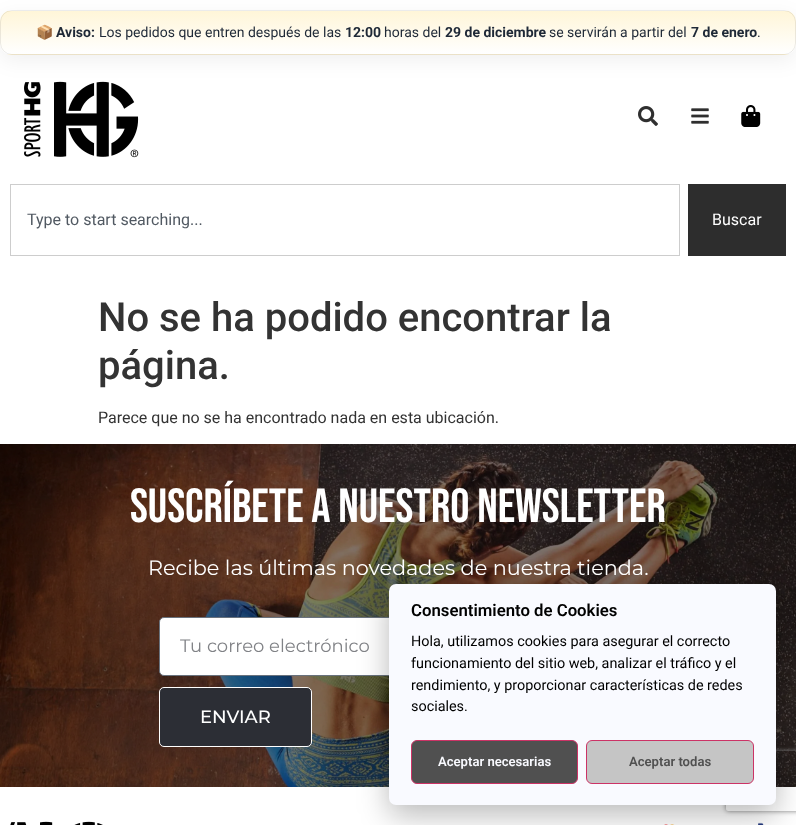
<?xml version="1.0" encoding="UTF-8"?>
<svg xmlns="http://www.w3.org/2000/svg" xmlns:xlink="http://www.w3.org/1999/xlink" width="796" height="825">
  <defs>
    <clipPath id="clip1"><path d="M 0 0 h 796 v 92 h -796 z m 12 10 h 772 c 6.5 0 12 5.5 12 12 v 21 c 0 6.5 -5.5 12 -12 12 h -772 c -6.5 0 -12 -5.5 -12 -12 v -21 c 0 -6.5 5.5 -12 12 -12 z" clip-rule="evenodd" /></clipPath>
    <clipPath id="clip2"><rect y="10" width="796" height="45" rx="12" /></clipPath>
    <linearGradient id="g1" gradientUnits="userSpaceOnUse" x1="398" y1="11" x2="398" y2="54"><stop offset="0" stop-color="#fff5d6" stop-opacity="0.95" /><stop offset="1" stop-color="#ffffff" stop-opacity="0.95" /></linearGradient>
    <linearGradient id="g2" gradientUnits="userSpaceOnUse" x1="398" y1="54" x2="398" y2="97"><stop offset="0" stop-color="#fff5d6" stop-opacity="0.95" /><stop offset="1" stop-color="#ffffff" stop-opacity="0.95" /></linearGradient>
    <clipPath id="clip3"><path d="M 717 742 h 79 v 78 h -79 z m 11 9 h 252 c 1 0 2 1 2 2 v 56 c 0 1 -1 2 -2 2 h -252 c -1 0 -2 -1 -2 -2 v -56 c 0 -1 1 -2 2 -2 z" clip-rule="evenodd" /></clipPath>
  </defs>
  <rect width="100%" height="100%" fill="#ffffff" />
  <g clip-path="url(#clip1)">
    <rect y="16" width="796" height="45" rx="12" fill="#000000" fill-opacity="0.06" filter="blur(10px)" />
  </g>
  <g clip-path="url(#clip2)">
    <rect y="11" width="796" height="43" fill="url(#g1)" />
    <rect y="54" width="796" height="1" fill="url(#g2)" />
  </g>
  <rect x="0.5" y="10.5" width="795" height="44" rx="11.5" fill="none" stroke="#000000" stroke-opacity="0.08" />
  <image x="24" y="81" width="115" height="77" xlink:href="image1.png" />
  <image x="638" y="106" width="20" height="20" xlink:href="image2.png" />
  <image x="691" y="108" width="18" height="16" xlink:href="image3.png" />
  <image x="741" y="105" width="20" height="22" xlink:href="image4.png" />
  <rect x="10.5" y="184.5" width="669" height="71" fill="none" stroke="#cdcdcd" />
  <rect x="688" y="184" width="98" height="72" fill="#2d2d2d" />
  <image x="0" y="444" width="796" height="343" xlink:href="image5.png" />
  <rect x="159.5" y="617.5" width="331" height="58" rx="4.5" fill="#ffffff" stroke="#69727d" />
  <rect x="159.5" y="687.5" width="152" height="59" rx="4.5" fill="#2c2e35" stroke="#ffffff" />
  <g clip-path="url(#clip3)">
    <rect x="726" y="751" width="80" height="60" rx="2" fill="#808080" filter="blur(2.5px)" />
  </g>
  <image x="10" y="821" width="93" height="4" xlink:href="image6.png" />
  <image x="664" y="822" width="100" height="3" xlink:href="image7.png" />
  <rect x="389" y="594" width="387" height="221" rx="7" fill="#020203" fill-opacity="0.28" filter="blur(15px)" />
  <rect x="389" y="584" width="387" height="221" rx="7" fill="#f9faff" />
  <rect x="411.5" y="740.5" width="166" height="43" rx="5.5" fill="#505050" stroke="#cc3366" />
  <rect x="586.5" y="740.5" width="167" height="43" rx="5.5" fill="#c5c5c5" stroke="#cc3366" />
  <text x="36" y="37" style="font-family: Noto Color Emoji; font-size: 14px; font-weight: bold; fill: #1f2937">📦</text>
  <text x="56" y="37" style="font-family: Roboto; font-size: 14px; font-weight: bold; fill: #1f2937">Aviso:</text>
  <text x="99" y="37" style="font-family: Roboto; font-size: 14px; fill: #1f2937">Los pedidos que entren después de las</text>
  <text x="345" y="37" style="font-family: Roboto; font-size: 14px; font-weight: bold; fill: #1f2937">12:00</text>
  <text x="384" y="37" style="font-family: Roboto; font-size: 14px; fill: #1f2937">horas del</text>
  <text x="445" y="37" style="font-family: Roboto; font-size: 14px; font-weight: bold; fill: #1f2937">29 de diciembre</text>
  <text x="549" y="37" style="font-family: Roboto; font-size: 14px; fill: #1f2937">se servirán a partir del</text>
  <text x="691" y="37" style="font-family: Roboto; font-size: 14px; font-weight: bold; fill: #1f2937">7 de enero</text>
  <text x="757" y="37" style="font-family: Roboto; font-size: 14px; fill: #1f2937">.</text>
  <text x="27" y="225" style="font-family: Roboto; font-size: 16px; fill: #515962">Type to start searching...</text>
  <text x="712" y="225" style="font-family: Roboto; font-size: 16px; fill: #ffffff">Buscar</text>
  <text x="98" y="331" style="font-family: Roboto; font-size: 40px; font-weight: 500; fill: #333333">No se ha podido encontrar la</text>
  <text x="98" y="379" style="font-family: Roboto; font-size: 40px; font-weight: 500; fill: #333333">página.</text>
  <text x="98" y="423" style="font-family: Roboto; font-size: 16px; fill: #333333">Parece que no se ha encontrado nada en esta ubicación.</text>
  <text x="130" y="522" style="font-family: Bebas Neue; font-size: 48px; fill: #ffffff">suscríbete a nuestro newsletter</text>
  <text x="148" y="575" style="font-family: Montserrat; font-size: 20.8px; fill: #ffffff">Recibe las últimas novedades de nuestra tienda.</text>
  <text x="180" y="652" style="font-family: Montserrat; font-size: 18px; fill: #808286">Tu correo electrónico</text>
  <text x="200" y="723" style="font-family: Montserrat; font-size: 18px; font-weight: 500; fill: #ffffff">ENVIAR</text>
  <text x="411" y="616" style="font-family: Roboto; font-size: 16.75px; font-weight: 600; fill: #000000">Consentimiento de Cookies</text>
  <text x="411" y="646" style="font-family: Roboto; font-size: 14.4px; fill: #000000">Hola, utilizamos cookies para asegurar el correcto</text>
  <text x="411" y="668" style="font-family: Roboto; font-size: 14.4px; fill: #000000">funcionamiento del sitio web, analizar el tráfico y el</text>
  <text x="411" y="690" style="font-family: Roboto; font-size: 14.4px; fill: #000000">rendimiento, y proporcionar características de redes</text>
  <text x="411" y="711" style="font-family: Roboto; font-size: 14.4px; fill: #000000">sociales.</text>
  <text x="438" y="766" style="font-family: Roboto; font-size: 13.1px; font-weight: 600; fill: #f9faff">Aceptar necesarias</text>
  <text x="629" y="766" style="font-family: Roboto; font-size: 13.1px; font-weight: 600; fill: #505050">Aceptar todas</text>
</svg>
